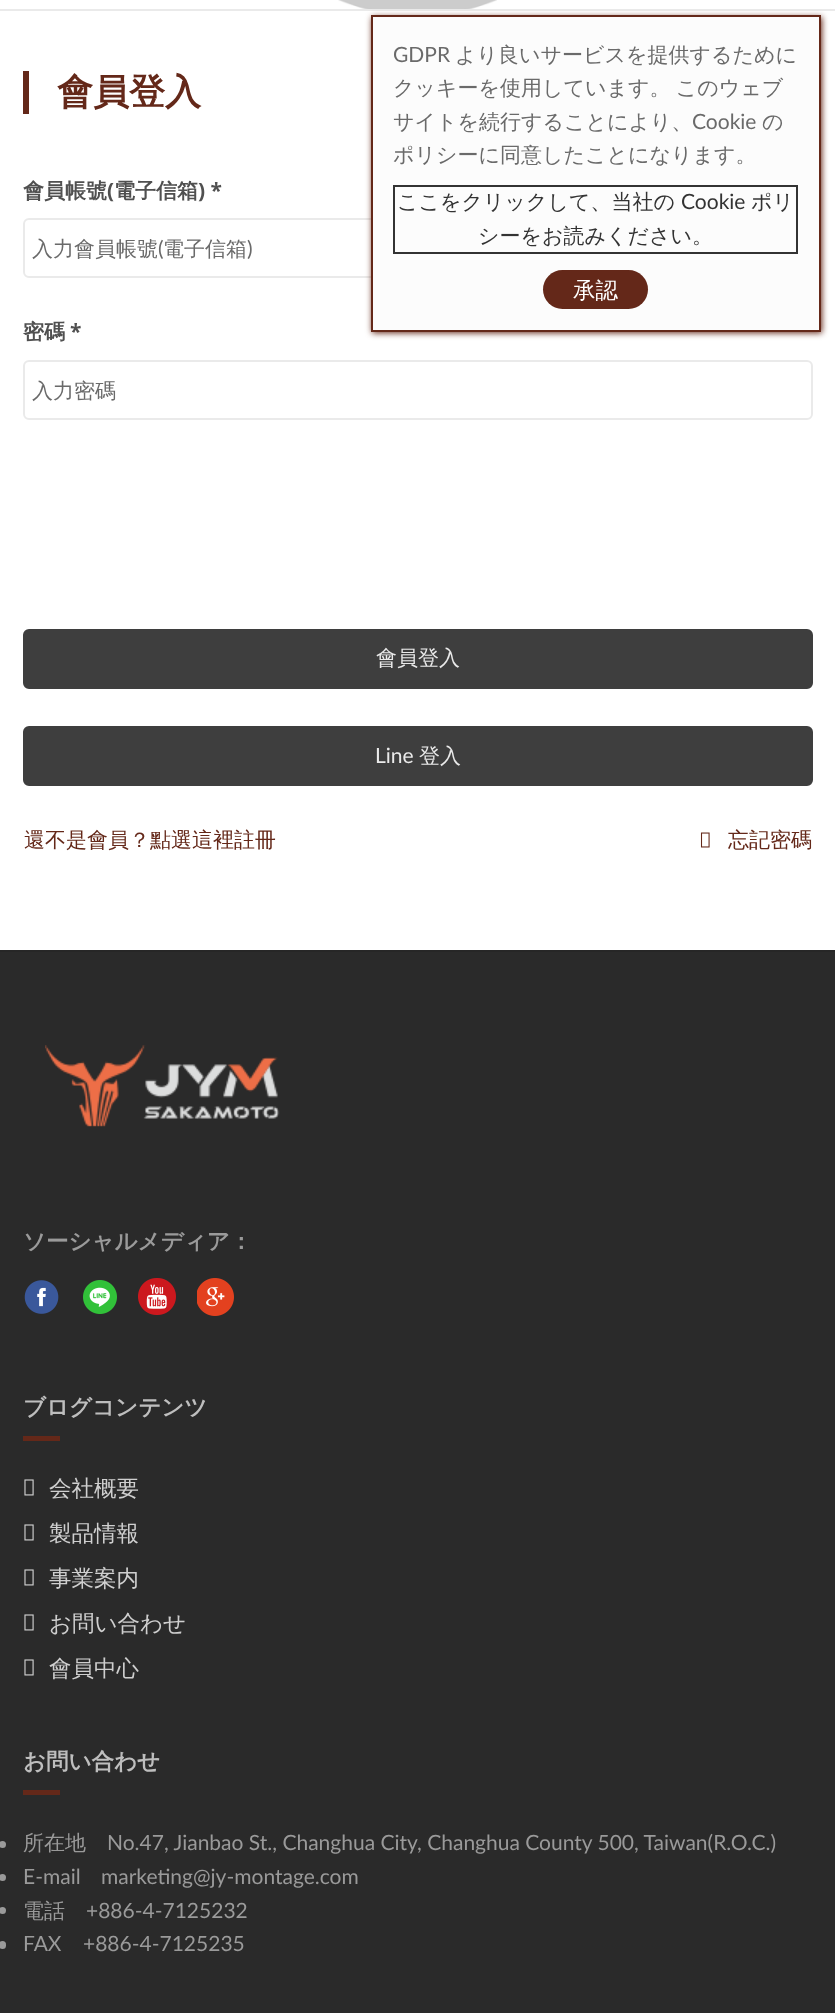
<?xml version="1.0" encoding="UTF-8"?>
<svg xmlns="http://www.w3.org/2000/svg" xmlns:xlink="http://www.w3.org/1999/xlink" width="835" height="2013">
  <rect width="100%" height="100%" fill="#ffffff" />
  <rect y="952" width="835" height="1061" fill="#2a2a2a" />
  <rect y="950" width="835" height="2" fill="#262626" />
  <image x="338" y="0" width="159" height="9" xlink:href="image7.png" />
  <rect y="9" width="835" height="2" fill="#eaeaea" />
  <rect x="24" y="219" width="788" height="58" rx="5" fill="none" stroke="#eaeaea" stroke-width="2" />
  <rect x="372" y="17" width="450" height="316" fill="#642819" filter="blur(3px)" />
  <rect x="372" y="16" width="448" height="315" fill="#fcfcfc" stroke="#642819" stroke-width="2" />
  <rect x="394" y="186" width="403" height="67" fill="none" stroke="#333333" stroke-width="2" />
  <rect x="543" y="270" width="105" height="39" rx="19.5" fill="#642819" />
  <image x="45" y="1045" width="235" height="82" xlink:href="image1.png" />
  <image x="24" y="1280" width="35" height="34" xlink:href="image2.png" />
  <image x="83" y="1280" width="34" height="34" xlink:href="image3.png" />
  <image x="138" y="1278" width="38" height="37" xlink:href="image4.png" />
  <image x="197" y="1278" width="37" height="38" xlink:href="image5.png" />
  <rect x="23" y="1436" width="37" height="5" fill="#642819" />
  <image x="24" y="1479" width="10" height="17" xlink:href="image6.png" />
  <image x="24" y="1524" width="10" height="17" xlink:href="image6.png" />
  <image x="24" y="1569" width="10" height="17" xlink:href="image6.png" />
  <image x="24" y="1614" width="10" height="17" xlink:href="image6.png" />
  <image x="24" y="1659" width="10" height="17" xlink:href="image6.png" />
  <rect x="23" y="1790" width="37" height="5" fill="#642819" />
  <circle cx="2.5" cy="1844.5" r="3.5" fill="#9a9a9a" />
  <circle cx="2.5" cy="1877.5" r="3.5" fill="#9a9a9a" />
  <circle cx="2.5" cy="1910.5" r="3.5" fill="#9a9a9a" />
  <rect x="-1" y="1941" width="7" height="8" rx="3.5" fill="#9a9a9a" />
  <rect x="23" y="71" width="6" height="43" fill="#642819" />
  <rect x="24" y="361" width="788" height="58" rx="5" fill="none" stroke="#eaeaea" stroke-width="2" />
  <rect x="24" y="630" width="788" height="58" rx="5" fill="#3e3e3e" stroke="#3e3e3e" stroke-width="2" />
  <rect x="24" y="727" width="788" height="58" rx="5" fill="#3e3e3e" stroke="#3e3e3e" stroke-width="2" />
  <image x="700" y="832" width="10" height="16" xlink:href="image8.png" />
  <text x="393" y="62" style="font-family: Lato; font-size: 21px; fill: #6a6a6a">GDPR</text>
  <text x="455" y="62" style="font-family: WenQuanYi Zen Hei; font-size: 21px; font-weight: 500; fill: #6a6a6a">より良いサービスを提供するために</text>
  <text x="393" y="95" word-spacing="-1" style="font-family: WenQuanYi Zen Hei; font-size: 21px; font-weight: 500; fill: #6a6a6a">クッキーを使用しています。 このウェブ</text>
  <text x="393" y="129" style="font-family: WenQuanYi Zen Hei; font-size: 21px; font-weight: 500; fill: #6a6a6a">サイトを続行することにより、</text>
  <text x="692" y="129" style="font-family: Lato; font-size: 21px; fill: #6a6a6a">Cookie</text>
  <text x="762" y="129" style="font-family: WenQuanYi Zen Hei; font-size: 21px; font-weight: 500; fill: #6a6a6a">の</text>
  <text x="393" y="162" style="font-family: WenQuanYi Zen Hei; font-size: 21px; font-weight: 500; fill: #6a6a6a">ポリシーに同意したことになります。</text>
  <text x="397" y="209" style="font-family: WenQuanYi Zen Hei; font-size: 21px; font-weight: 500; fill: #333333">ここをクリックして、当社の</text>
  <text x="681" y="209" style="font-family: Lato; font-size: 21px; fill: #333333">Cookie</text>
  <text x="751" y="209" style="font-family: WenQuanYi Zen Hei; font-size: 21px; font-weight: 500; fill: #333333">ポリ</text>
  <text x="478" y="243" style="font-family: WenQuanYi Zen Hei; font-size: 21px; font-weight: 500; fill: #333333">シーをお読みください。</text>
  <text x="573" y="298" style="font-family: WenQuanYi Zen Hei; font-size: 22.5px; font-weight: 500; fill: #ffffff">承認</text>
  <text x="23" y="1249" style="font-family: WenQuanYi Zen Hei; font-size: 22.5px; font-weight: bold; fill: #9a9a9a">ソーシャルメディア：</text>
  <text x="23" y="1415" style="font-family: WenQuanYi Zen Hei; font-size: 22.5px; font-weight: bold; fill: #bebebe">ブログコンテンツ</text>
  <text x="49" y="1496" style="font-family: WenQuanYi Zen Hei; font-size: 22.5px; font-weight: 500; fill: #cfcfcf">会社概要</text>
  <text x="49" y="1541" style="font-family: WenQuanYi Zen Hei; font-size: 22.5px; font-weight: 500; fill: #cfcfcf">製品情報</text>
  <text x="49" y="1586" style="font-family: WenQuanYi Zen Hei; font-size: 22.5px; font-weight: 500; fill: #cfcfcf">事業案内</text>
  <text x="49" y="1631" style="font-family: WenQuanYi Zen Hei; font-size: 22.5px; font-weight: 500; fill: #cfcfcf">お問い合わせ</text>
  <text x="49" y="1676" style="font-family: WenQuanYi Zen Hei; font-size: 22.5px; font-weight: 500; fill: #cfcfcf">會員中心</text>
  <text x="23" y="1769" style="font-family: WenQuanYi Zen Hei; font-size: 22.5px; font-weight: bold; fill: #bebebe">お問い合わせ</text>
  <text x="23" y="1850" style="font-family: WenQuanYi Zen Hei; font-size: 21px; font-weight: 500; fill: #9a9a9a">所在地</text>
  <text x="107" y="1850" style="font-family: Lato; font-size: 21px; fill: #9a9a9a">No.47, Jianbao St., Changhua City, Changhua County 500, Taiwan(R.O.C.)</text>
  <text x="23" y="1884" style="font-family: Lato; font-size: 21px; fill: #9a9a9a">E-mail</text>
  <text x="101" y="1884" style="font-family: Lato; font-size: 21px; fill: #9a9a9a">marketing@jy-montage.com</text>
  <text x="23" y="1918" style="font-family: WenQuanYi Zen Hei; font-size: 21px; font-weight: 500; fill: #9a9a9a">電話</text>
  <text x="86" y="1918" style="font-family: Lato; font-size: 21px; fill: #9a9a9a">+886-4-7125232</text>
  <text x="23" y="1951" style="font-family: Lato; font-size: 21px; fill: #9a9a9a" xml:space="preserve">FAX    +886-4-7125235</text>
  <text x="57" y="104" style="font-family: WenQuanYi Zen Hei; font-size: 36px; font-weight: bold; fill: #642819">會員登入</text>
  <text x="23" y="198" style="font-family: WenQuanYi Zen Hei; font-size: 21px; font-weight: bold; fill: #505050">會員帳號</text>
  <text x="107" y="198" style="font-family: Open Sans; font-size: 21px; font-weight: bold; fill: #505050">(</text>
  <text x="114" y="198" style="font-family: WenQuanYi Zen Hei; font-size: 21px; font-weight: bold; fill: #505050">電子信箱</text>
  <text x="198" y="198" style="font-family: Open Sans; font-size: 21px; font-weight: bold; fill: #505050">) *</text>
  <text x="32" y="256" style="font-family: WenQuanYi Zen Hei; font-size: 21px; font-weight: 500; fill: #6a6a6a">入力會員帳號</text>
  <text x="158" y="256" style="font-family: Lato; font-size: 21px; fill: #6a6a6a">(</text>
  <text x="163" y="256" style="font-family: WenQuanYi Zen Hei; font-size: 21px; font-weight: 500; fill: #6a6a6a">電子信箱</text>
  <text x="247" y="256" style="font-family: Lato; font-size: 21px; fill: #6a6a6a">)</text>
  <text x="23" y="339" style="font-family: WenQuanYi Zen Hei; font-size: 21px; font-weight: bold; fill: #505050">密碼</text>
  <text x="70" y="339" style="font-family: Open Sans; font-size: 21px; font-weight: bold; fill: #505050">*</text>
  <text x="32" y="398" style="font-family: WenQuanYi Zen Hei; font-size: 21px; font-weight: 500; fill: #6a6a6a">入力密碼</text>
  <text x="376" y="665" style="font-family: WenQuanYi Zen Hei; font-size: 21px; font-weight: 500; fill: #eaeaea">會員登入</text>
  <text x="375" y="763" style="font-family: Lato; font-size: 21px; fill: #eaeaea">Line</text>
  <text x="419" y="763" style="font-family: WenQuanYi Zen Hei; font-size: 21px; font-weight: 500; fill: #eaeaea">登入</text>
  <text x="24" y="847" style="font-family: WenQuanYi Zen Hei; font-size: 21px; font-weight: 500; fill: #642819">還不是會員？點選這裡註冊</text>
  <text x="728" y="847" style="font-family: WenQuanYi Zen Hei; font-size: 21px; font-weight: 500; fill: #642819">忘記密碼</text>
</svg>
